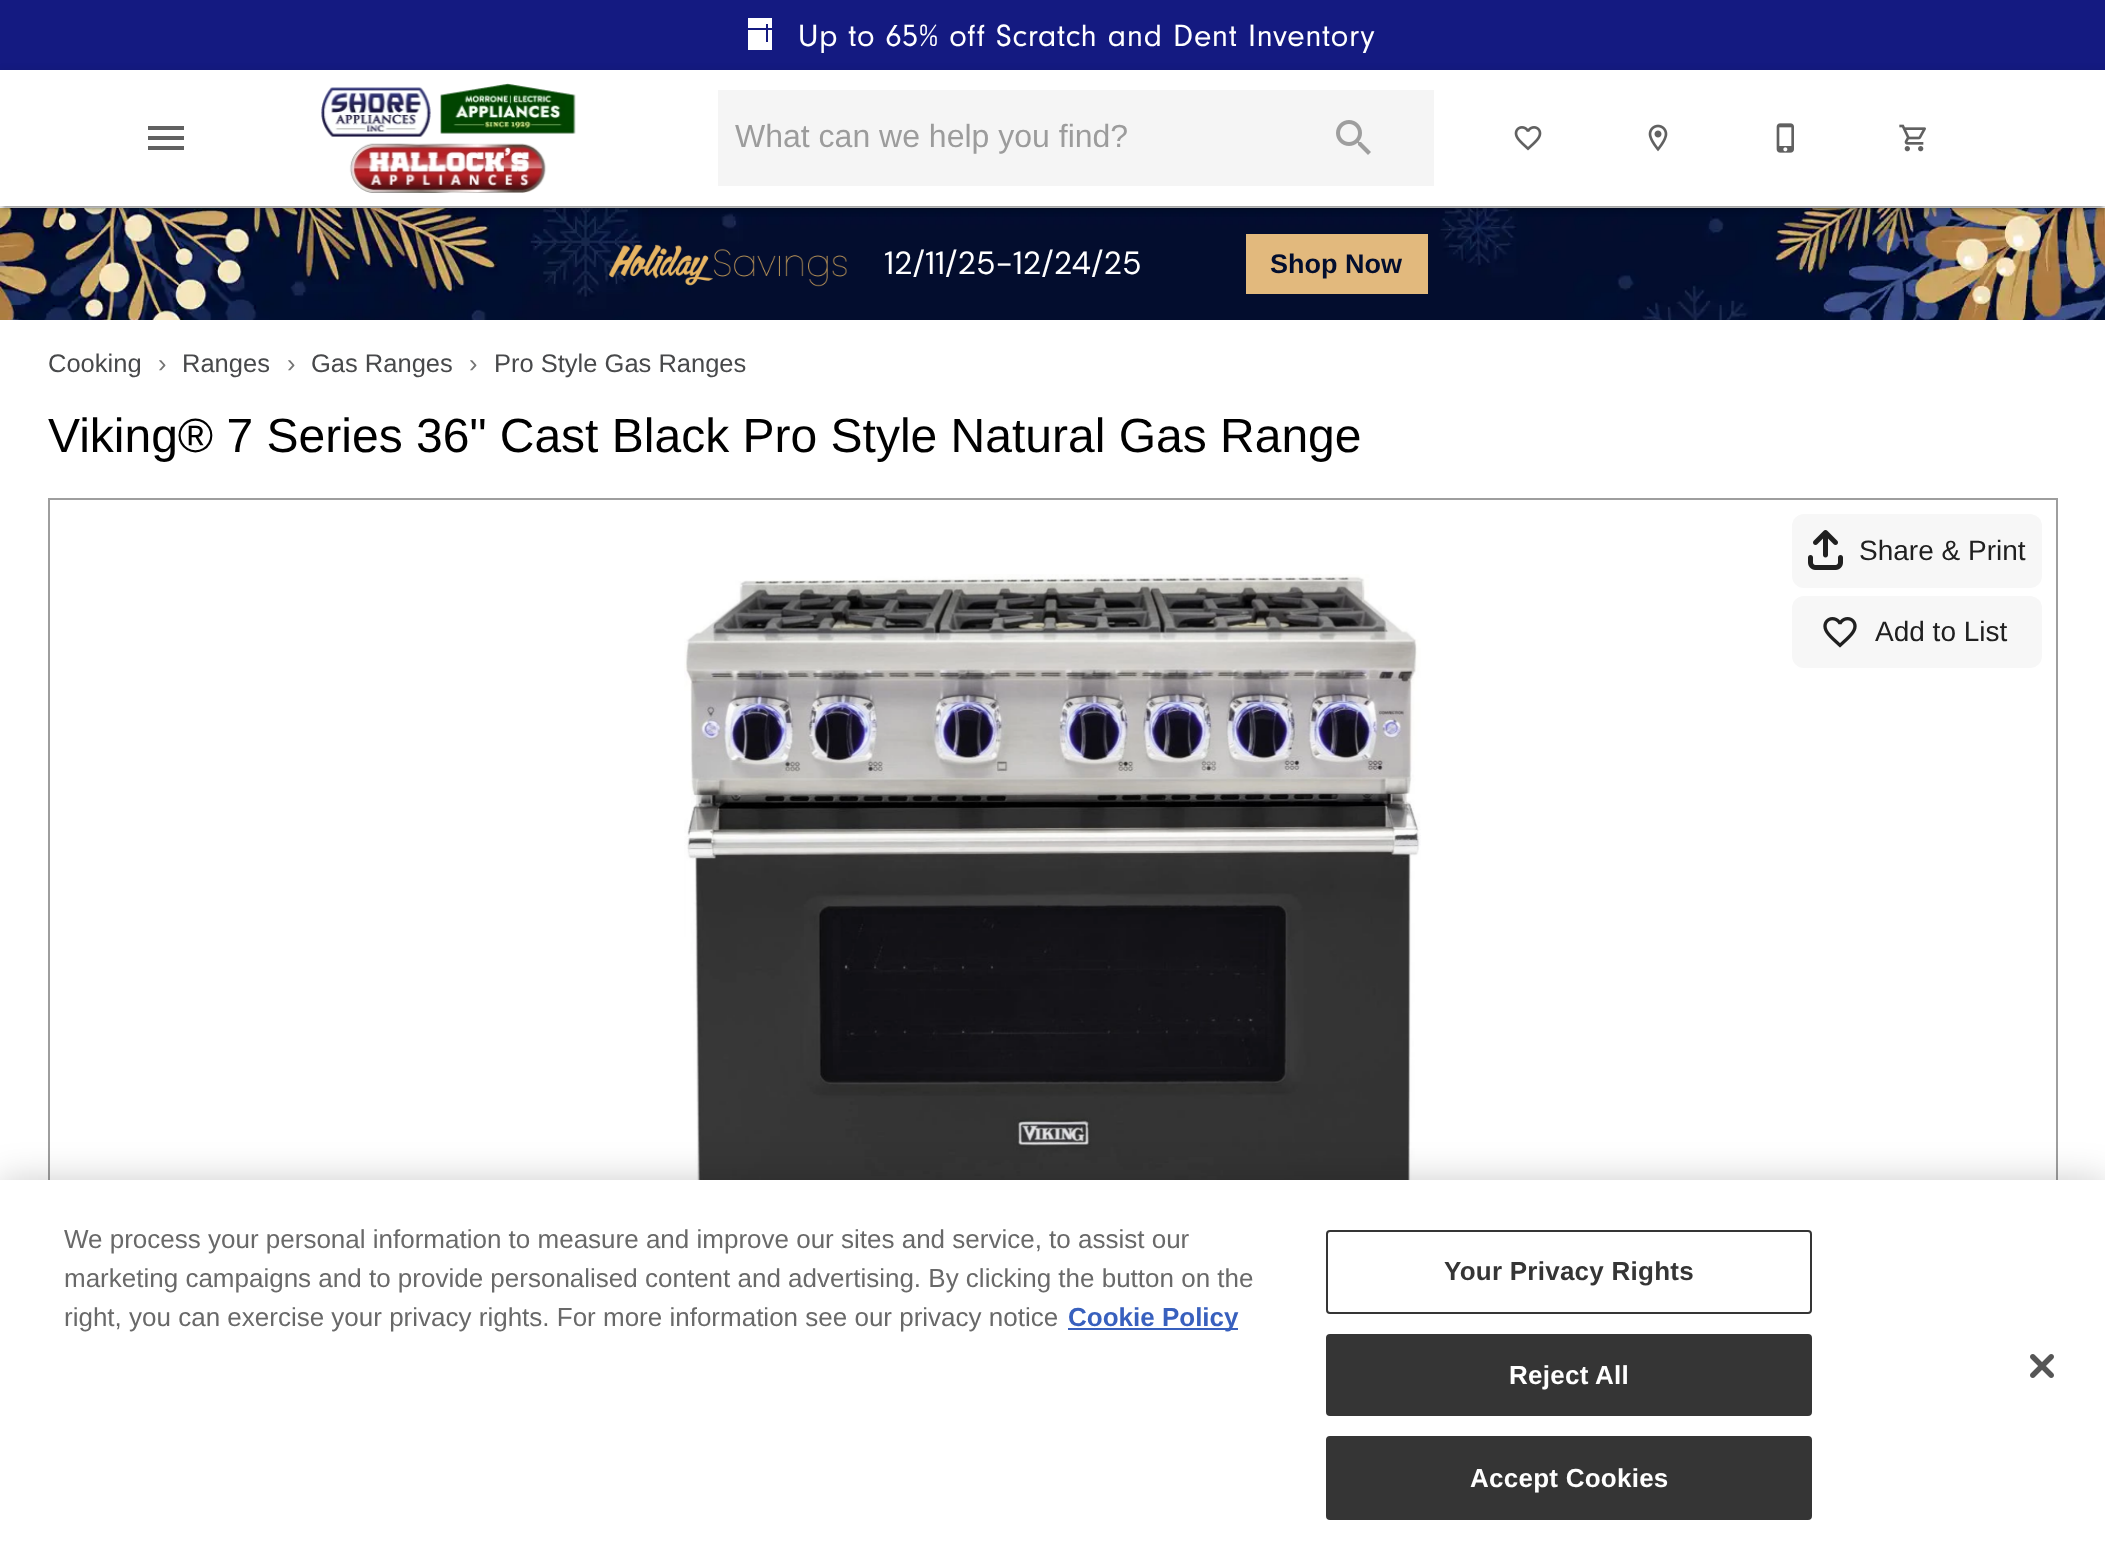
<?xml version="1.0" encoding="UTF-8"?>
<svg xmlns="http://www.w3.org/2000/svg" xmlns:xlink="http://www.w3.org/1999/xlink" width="2105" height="1559">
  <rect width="100%" height="100%" fill="#ffffff" />
  <rect width="2105" height="70" fill="#141a81" />
  <image x="748" y="18" width="24" height="32" xlink:href="image1.png" />
  <image x="0" y="208" width="2105" height="112" xlink:href="image8.png" />
  <rect y="72" width="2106" height="136" fill="#000000" fill-opacity="0.12" filter="blur(5px)" />
  <rect y="74" width="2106" height="136" fill="#000000" fill-opacity="0.14" filter="blur(2px)" />
  <rect x="4" y="80" width="2098" height="128" fill="#000000" fill-opacity="0.2" filter="blur(1px)" />
  <rect y="70" width="2105" height="136" fill="#ffffff" />
  <path d="M 148 150 h 36 v -4 h -36 z m 0 -10 h 36 v -4 h -36 z m 0 -14 v 4 h 36 v -4 z" fill="#616161" />
  <image x="321" y="83" width="255" height="110" xlink:href="image2.png" />
  <rect x="718" y="90" width="716" height="96" fill="#f5f5f5" />
  <image x="1336" y="120" width="35" height="35" xlink:href="image3.png" />
  <image x="1514" y="126" width="28" height="25" xlink:href="image4.png" />
  <image x="1648" y="124" width="20" height="28" xlink:href="image5.png" />
  <image x="1776" y="123" width="18" height="30" xlink:href="image6.png" />
  <image x="1899" y="124" width="27" height="28" xlink:href="image7.png" />
  <image x="608" y="244" width="239" height="43" xlink:href="image9.png" />
  <rect x="1246" y="234" width="182" height="60" fill="#e2b97d" />
  <rect x="49" y="499" width="2008" height="958" fill="none" stroke="#9e9e9e" stroke-width="2" />
  <image x="684" y="574" width="737" height="606" xlink:href="image10.png" />
  <rect x="1792" y="514" width="250" height="74" rx="12" fill="#f7f7f7" />
  <image x="1808" y="530" width="35" height="40" xlink:href="image11.png" />
  <rect x="1792" y="596" width="250" height="72" rx="12" fill="#f7f7f7" />
  <image x="1823" y="617" width="34" height="31" xlink:href="image12.png" />
  <rect y="1180" width="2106" height="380" fill="#000000" fill-opacity="0.2" filter="blur(18px)" />
  <rect y="1180" width="2105" height="379" fill="#ffffff" />
  <rect x="1068" y="1328" width="170" height="2" fill="#3860be" />
  <rect x="1327" y="1231" width="484" height="82" rx="3" fill="none" stroke="#353535" stroke-width="2" />
  <rect x="1327" y="1335" width="484" height="80" rx="3" fill="#353535" stroke="#353535" stroke-width="2" />
  <rect x="1327" y="1437" width="484" height="82" rx="3" fill="#353535" stroke="#353535" stroke-width="2" />
  <image x="2030" y="1354" width="24" height="24" xlink:href="image13.png" />
  <text x="798" y="46" style="font-family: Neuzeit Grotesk; font-size: 32px; letter-spacing: 0.65px; fill: #ffffff">Up to 65% off Scratch and Dent Inventory</text>
  <text x="735" y="147" style="font-family: Liberation Sans; font-size: 32px; fill: #9c9c9c">What can we help you find?</text>
  <text x="884" y="274" style="font-family: DM Sans; font-size: 32px; fill: #ffffff">12/11/25-12/24/25</text>
  <text x="1270" y="273" style="font-family: Liberation Sans; font-size: 27px; font-weight: bold; fill: #030e2e">Shop Now</text>
  <text x="48" y="372" style="font-family: Liberation Sans; font-size: 25.5px; fill: #48494b">Cooking</text>
  <text x="158" y="372" style="font-family: Liberation Sans; font-size: 25.5px; fill: #757575">›</text>
  <text x="182" y="372" style="font-family: Liberation Sans; font-size: 25.5px; fill: #48494b">Ranges</text>
  <text x="287" y="372" style="font-family: Liberation Sans; font-size: 25.5px; fill: #757575">›</text>
  <text x="311" y="372" style="font-family: Liberation Sans; font-size: 25.5px; fill: #48494b">Gas Ranges</text>
  <text x="469" y="372" style="font-family: Liberation Sans; font-size: 25.5px; fill: #757575">›</text>
  <text x="494" y="372" style="font-family: Liberation Sans; font-size: 25.5px; fill: #48494b">Pro Style Gas Ranges</text>
  <text x="48" y="452" style="font-family: Liberation Sans; font-size: 48px; fill: #000000">Viking® 7 Series 36" Cast Black Pro Style Natural Gas Range</text>
  <text x="1859" y="560" style="font-family: Liberation Sans; font-size: 28px; fill: #202020">Share &amp; Print</text>
  <text x="1875" y="641" style="font-family: Liberation Sans; font-size: 28px; fill: #202020">Add to List</text>
  <text x="64" y="1248" style="font-family: Liberation Sans; font-size: 26px; fill: #696969">We process your personal information to measure and improve our sites and service, to assist our</text>
  <text x="64" y="1287" style="font-family: Liberation Sans; font-size: 26px; fill: #696969">marketing campaigns and to provide personalised content and advertising. By clicking the button on the</text>
  <text x="64" y="1326" style="font-family: Liberation Sans; font-size: 26px; fill: #696969">right, you can exercise your privacy rights. For more information see our privacy notice</text>
  <text x="1068" y="1326" style="font-family: Liberation Sans; font-size: 26px; font-weight: bold; fill: #3860be">Cookie Policy</text>
  <text x="1444" y="1280" style="font-family: Liberation Sans; font-size: 26px; font-weight: bold; letter-spacing: 0.25px; fill: #353535">Your Privacy Rights</text>
  <text x="1509" y="1384" style="font-family: Liberation Sans; font-size: 26px; font-weight: bold; letter-spacing: 0.25px; fill: #ffffff">Reject All</text>
  <text x="1470" y="1487" style="font-family: Liberation Sans; font-size: 26px; font-weight: bold; letter-spacing: 0.25px; fill: #ffffff">Accept Cookies</text>
</svg>
